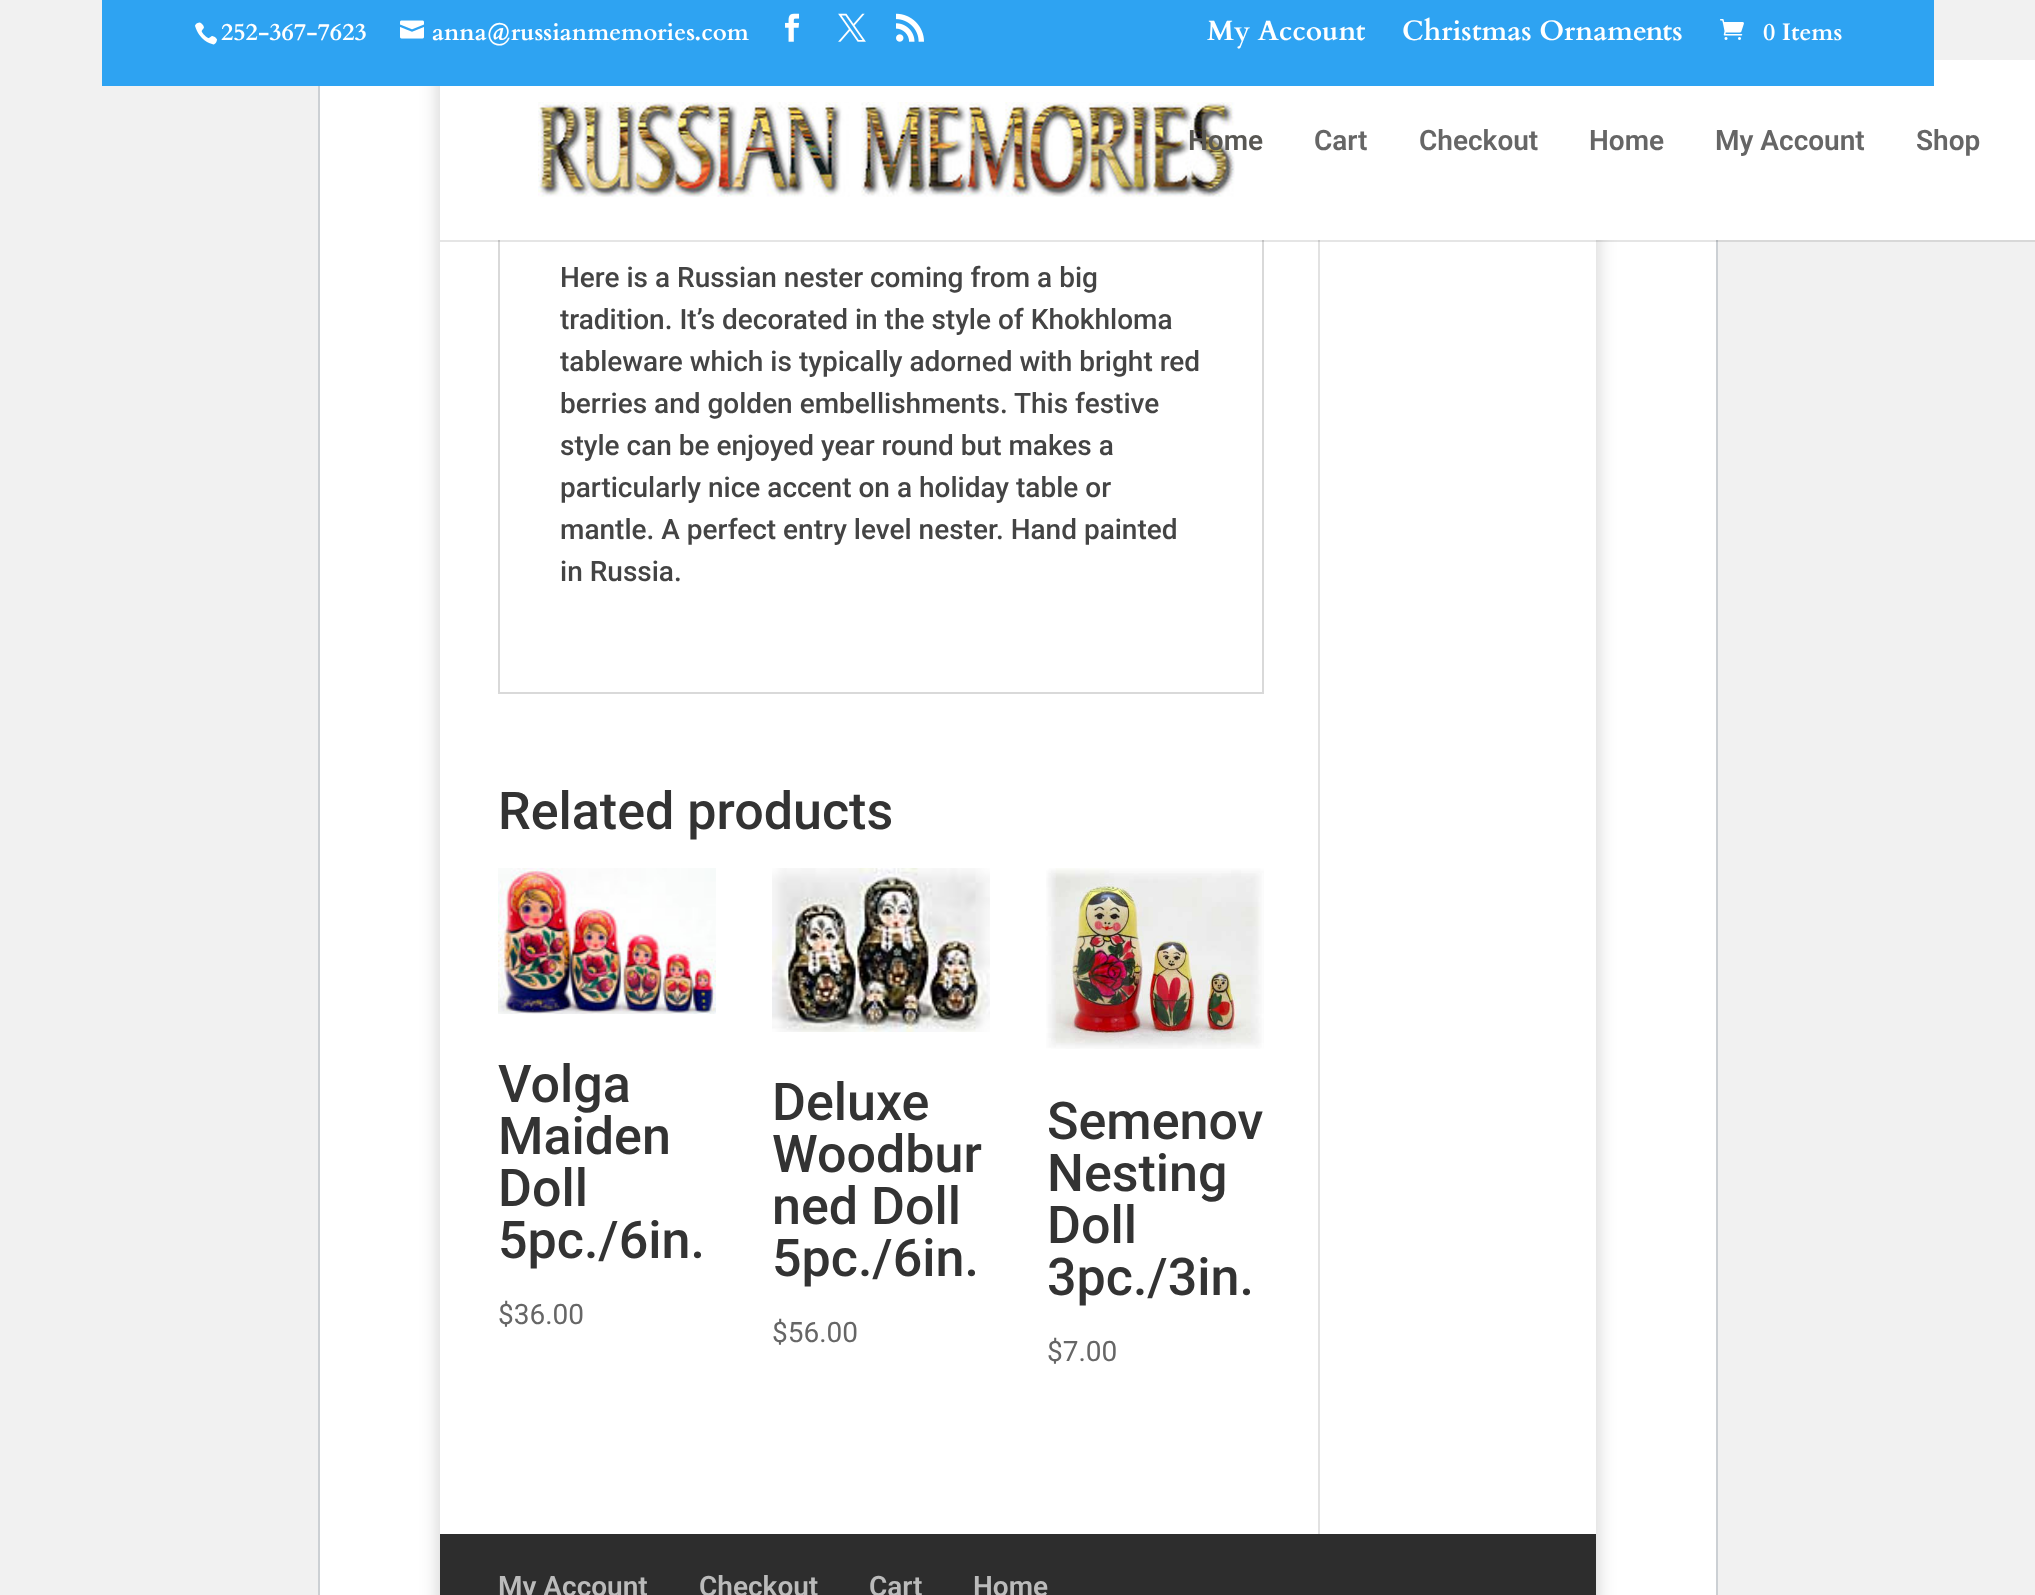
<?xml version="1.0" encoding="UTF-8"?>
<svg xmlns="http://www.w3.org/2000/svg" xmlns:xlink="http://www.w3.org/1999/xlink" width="2035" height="1595">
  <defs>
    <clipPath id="clip1"><path d="M 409 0 h 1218 v 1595 h -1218 z m 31 -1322 h 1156 v 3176 h -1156 z" clip-rule="evenodd" /></clipPath>
  </defs>
  <rect width="100%" height="100%" fill="#f1f1f1" />
  <rect x="320" y="86" width="1396" height="1509" fill="#ffffff" />
  <rect x="319" y="-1" width="1398" height="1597" fill="none" stroke="#ccd0d4" stroke-width="2" />
  <g clip-path="url(#clip1)">
    <rect x="440" y="-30" width="1156" height="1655" fill="#000000" fill-opacity="0.2" filter="blur(10px)" />
  </g>
  <rect x="499" y="5" width="764" height="688" fill="none" stroke="#d9d9d9" stroke-width="2" />
  <rect x="440" y="60" width="1595" height="180" fill="#ffffff" />
  <rect x="102" width="1832" height="86" fill="#2ea3f2" />
  <image x="195" y="22" width="22" height="23" xlink:href="image1.png" />
  <image x="400" y="20" width="24" height="19" xlink:href="image2.png" />
  <image x="785" y="13" width="15" height="29" xlink:href="image3.png" />
  <image x="838" y="13" width="28" height="29" xlink:href="image4.png" />
  <image x="896" y="13" width="28" height="29" xlink:href="image5.png" />
  <image x="1720" y="19" width="24" height="21" xlink:href="image6.png" />
  <rect x="1318" y="240" width="2" height="1294" fill="#e2e2e2" />
  <rect x="440" y="240" width="1595" height="2" fill="#000000" fill-opacity="0.1" />
  <image x="538" y="102" width="697" height="95" xlink:href="image7.png" />
  <image x="498" y="868" width="218" height="146" xlink:href="image8.png" />
  <image x="772" y="868" width="218" height="164" xlink:href="image9.png" />
  <image x="1046" y="868" width="218" height="181" xlink:href="image10.png" />
  <rect x="440" y="1534" width="1156" height="61" fill="#2d2d2d" />
  <text x="221" y="40" style="font-family: Cardo; font-size: 24px; font-weight: bold; fill: #ffffff">252-367-7623</text>
  <text x="432" y="40" style="font-family: Cardo; font-size: 24px; font-weight: bold; fill: #ffffff">anna@russianmemories.com</text>
  <text x="1207" y="40" style="font-family: Cardo; font-size: 28px; font-weight: bold; fill: #ffffff">My Account</text>
  <text x="1402" y="40" style="font-family: Cardo; font-size: 28px; font-weight: bold; fill: #ffffff">Christmas Ornaments</text>
  <text x="1763" y="40" style="font-family: Cardo; font-size: 24px; font-weight: bold; fill: #ffffff">0 Items</text>
  <text x="1188" y="150" style="font-family: Roboto; font-size: 28px; font-weight: 600; fill: #585753">Home</text>
  <text x="1314" y="150" style="font-family: Roboto; font-size: 28px; font-weight: 600; fill: #666666">Cart</text>
  <text x="1419" y="150" style="font-family: Roboto; font-size: 28px; font-weight: 600; fill: #666666">Checkout</text>
  <text x="1589" y="150" style="font-family: Roboto; font-size: 28px; font-weight: 600; fill: #666666">Home</text>
  <text x="1715" y="150" style="font-family: Roboto; font-size: 28px; font-weight: 600; fill: #666666">My Account</text>
  <text x="1916" y="150" style="font-family: Roboto; font-size: 28px; font-weight: 600; fill: #666666">Shop</text>
  <text x="560" y="287" style="font-family: Roboto; font-size: 28px; font-weight: 500; fill: #444444">Here is a Russian nester coming from a big</text>
  <text x="560" y="329" style="font-family: Roboto; font-size: 28px; font-weight: 500; fill: #444444">tradition. It’s decorated in the style of Khokhloma</text>
  <text x="560" y="371" style="font-family: Roboto; font-size: 28px; font-weight: 500; fill: #444444">tableware which is typically adorned with bright red</text>
  <text x="560" y="413" style="font-family: Roboto; font-size: 28px; font-weight: 500; fill: #444444">berries and golden embellishments. This festive</text>
  <text x="560" y="455" style="font-family: Roboto; font-size: 28px; font-weight: 500; fill: #444444">style can be enjoyed year round but makes a</text>
  <text x="560" y="497" style="font-family: Roboto; font-size: 28px; font-weight: 500; fill: #444444">particularly nice accent on a holiday table or</text>
  <text x="560" y="539" style="font-family: Roboto; font-size: 28px; font-weight: 500; fill: #444444">mantle. A perfect entry level nester. Hand painted</text>
  <text x="560" y="581" style="font-family: Roboto; font-size: 28px; font-weight: 500; fill: #444444">in Russia.</text>
  <text x="498" y="829" style="font-family: Roboto; font-size: 52px; font-weight: 500; fill: #333333">Related products</text>
  <text x="498" y="1102" style="font-family: Roboto; font-size: 52px; font-weight: 500; fill: #333333">Volga</text>
  <text x="498" y="1154" style="font-family: Roboto; font-size: 52px; font-weight: 500; fill: #333333">Maiden</text>
  <text x="498" y="1206" style="font-family: Roboto; font-size: 52px; font-weight: 500; fill: #333333">Doll</text>
  <text x="498" y="1258" style="font-family: Roboto; font-size: 52px; font-weight: 500; fill: #333333">5pc./6in.</text>
  <text x="498" y="1324" style="font-family: Roboto; font-size: 28px; fill: #666666">$36.00</text>
  <text x="772" y="1120" style="font-family: Roboto; font-size: 52px; font-weight: 500; fill: #333333">Deluxe</text>
  <text x="772" y="1172" style="font-family: Roboto; font-size: 52px; font-weight: 500; fill: #333333">Woodbur</text>
  <text x="772" y="1224" style="font-family: Roboto; font-size: 52px; font-weight: 500; fill: #333333">ned Doll</text>
  <text x="772" y="1276" style="font-family: Roboto; font-size: 52px; font-weight: 500; fill: #333333">5pc./6in.</text>
  <text x="772" y="1342" style="font-family: Roboto; font-size: 28px; fill: #666666">$56.00</text>
  <text x="1047" y="1139" style="font-family: Roboto; font-size: 52px; font-weight: 500; fill: #333333">Semenov</text>
  <text x="1047" y="1191" style="font-family: Roboto; font-size: 52px; font-weight: 500; fill: #333333">Nesting</text>
  <text x="1047" y="1243" style="font-family: Roboto; font-size: 52px; font-weight: 500; fill: #333333">Doll</text>
  <text x="1047" y="1295" style="font-family: Roboto; font-size: 52px; font-weight: 500; fill: #333333">3pc./3in.</text>
  <text x="1047" y="1361" style="font-family: Roboto; font-size: 28px; fill: #666666">$7.00</text>
  <text x="498" y="1596" style="font-family: Roboto; font-size: 28px; font-weight: 600; fill: #bbbbbb">My Account</text>
  <text x="699" y="1596" style="font-family: Roboto; font-size: 28px; font-weight: 600; fill: #bbbbbb">Checkout</text>
  <text x="869" y="1596" style="font-family: Roboto; font-size: 28px; font-weight: 600; fill: #bbbbbb">Cart</text>
  <text x="973" y="1596" style="font-family: Roboto; font-size: 28px; font-weight: 600; fill: #bbbbbb">Home</text>
</svg>
